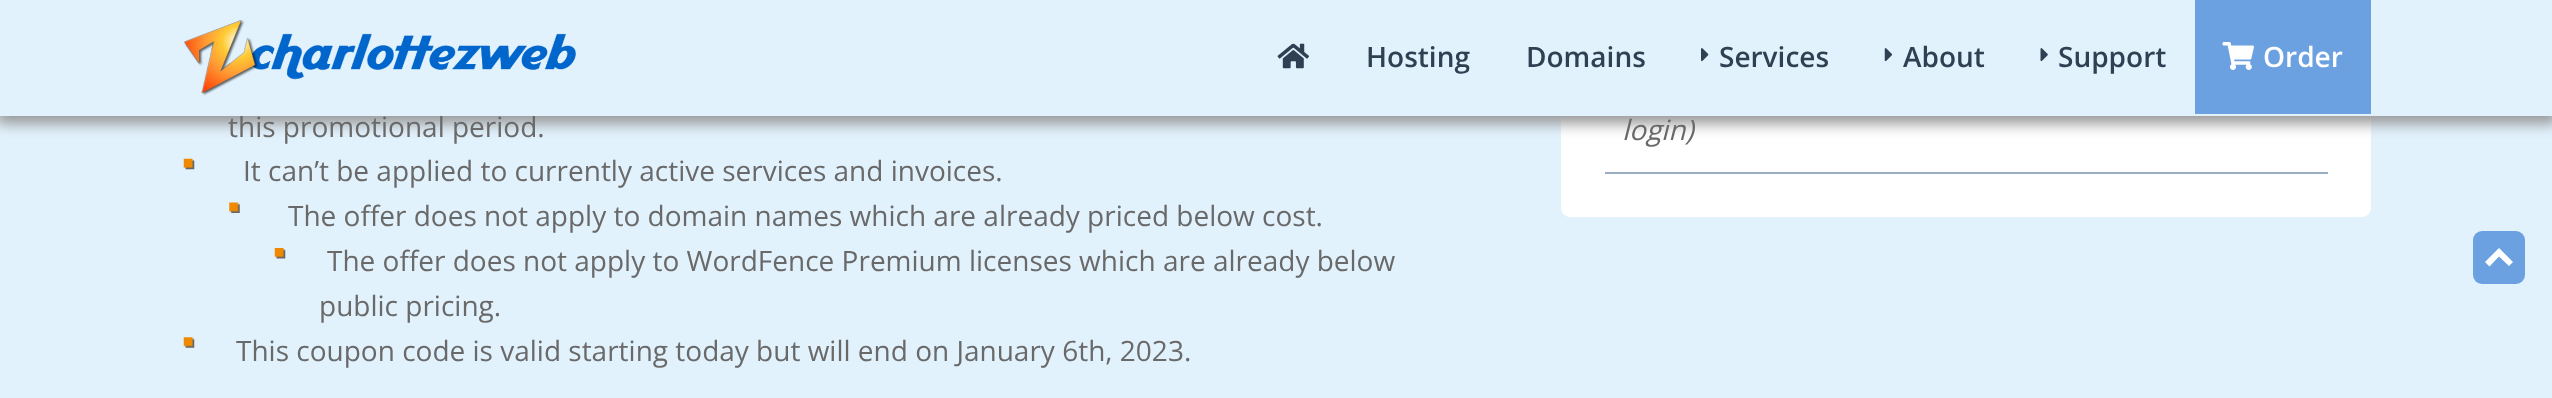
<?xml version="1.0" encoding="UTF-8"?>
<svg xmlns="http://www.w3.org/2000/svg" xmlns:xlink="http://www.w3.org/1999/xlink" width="2552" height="398">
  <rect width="100%" height="100%" fill="#e2f2fd" />
  <rect x="1561" y="-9" width="810" height="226" rx="9" fill="#ffffff" />
  <rect x="-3" y="2" width="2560" height="122" fill="#999999" filter="blur(7px)" />
  <image x="183" y="158" width="12" height="12" xlink:href="image7.png" />
  <image x="229" y="202" width="11" height="11" xlink:href="image8.png" />
  <image x="274" y="248" width="12" height="11" xlink:href="image9.png" />
  <image x="183" y="337" width="12" height="11" xlink:href="image10.png" />
  <rect x="1605" y="172" width="723" height="2" fill="#98adc2" />
  <rect x="2473" y="231" width="52" height="53" rx="9" fill="#6ca1e1" />
  <path d="M 2499 248 l 14 14 l -4 4 l -10 -9.5 l -9.5 10 l -4.5 -4.5 z" fill="#ffffff" />
  <text x="228" y="137" style="font-family: Open Sans; font-size: 28px; fill: #696969">this promotional period.</text>
  <rect width="2552" height="116" fill="#e2f2fd" />
  <rect x="2195" width="176" height="114" fill="#6ca1e1" />
  <text x="2263" y="67" style="font-family: Open Sans; font-size: 28px; font-weight: 600; fill: #ffffff">Order</text>
  <image x="2222" y="42" width="32" height="28" xlink:href="image6.png" />
  <text x="2058" y="67" style="font-family: Open Sans; font-size: 28px; font-weight: 600; fill: #304053">Support</text>
  <image x="2040" y="48" width="8" height="14" xlink:href="image5.png" />
  <text x="1903" y="67" style="font-family: Open Sans; font-size: 28px; font-weight: 600; fill: #304053">About</text>
  <image x="1884" y="48" width="9" height="14" xlink:href="image4.png" />
  <text x="1719" y="67" style="font-family: Open Sans; font-size: 28px; font-weight: 600; fill: #304053">Services</text>
  <image x="1701" y="48" width="8" height="14" xlink:href="image3.png" />
  <text x="1526" y="67" style="font-family: Open Sans; font-size: 28px; font-weight: 600; fill: #304053">Domains</text>
  <text x="1366" y="67" style="font-family: Open Sans; font-size: 28px; font-weight: 600; fill: #304053">Hosting</text>
  <image x="1277" y="43" width="32" height="26" xlink:href="image2.png" />
  <image x="184" y="20" width="392" height="76" xlink:href="image1.png" />
  <text x="243" y="181" style="font-family: Open Sans; font-size: 28px; fill: #696969">It can’t be applied to currently active services and invoices.</text>
  <text x="288" y="226" style="font-family: Open Sans; font-size: 28px; fill: #696969">The offer does not apply to domain names which are already priced below cost.</text>
  <text x="327" y="271" style="font-family: Open Sans; font-size: 28px; fill: #696969">The offer does not apply to WordFence Premium licenses which are already below</text>
  <text x="319" y="316" style="font-family: Open Sans; font-size: 28px; fill: #696969">public pricing.</text>
  <text x="236" y="361" style="font-family: Open Sans; font-size: 28px; fill: #696969">This coupon code is valid starting today but will end on January 6th, 2023.</text>
  <text x="1622" y="140" style="font-family: Open Sans; font-size: 28px; font-style: italic; fill: #696969">login)</text>
</svg>
